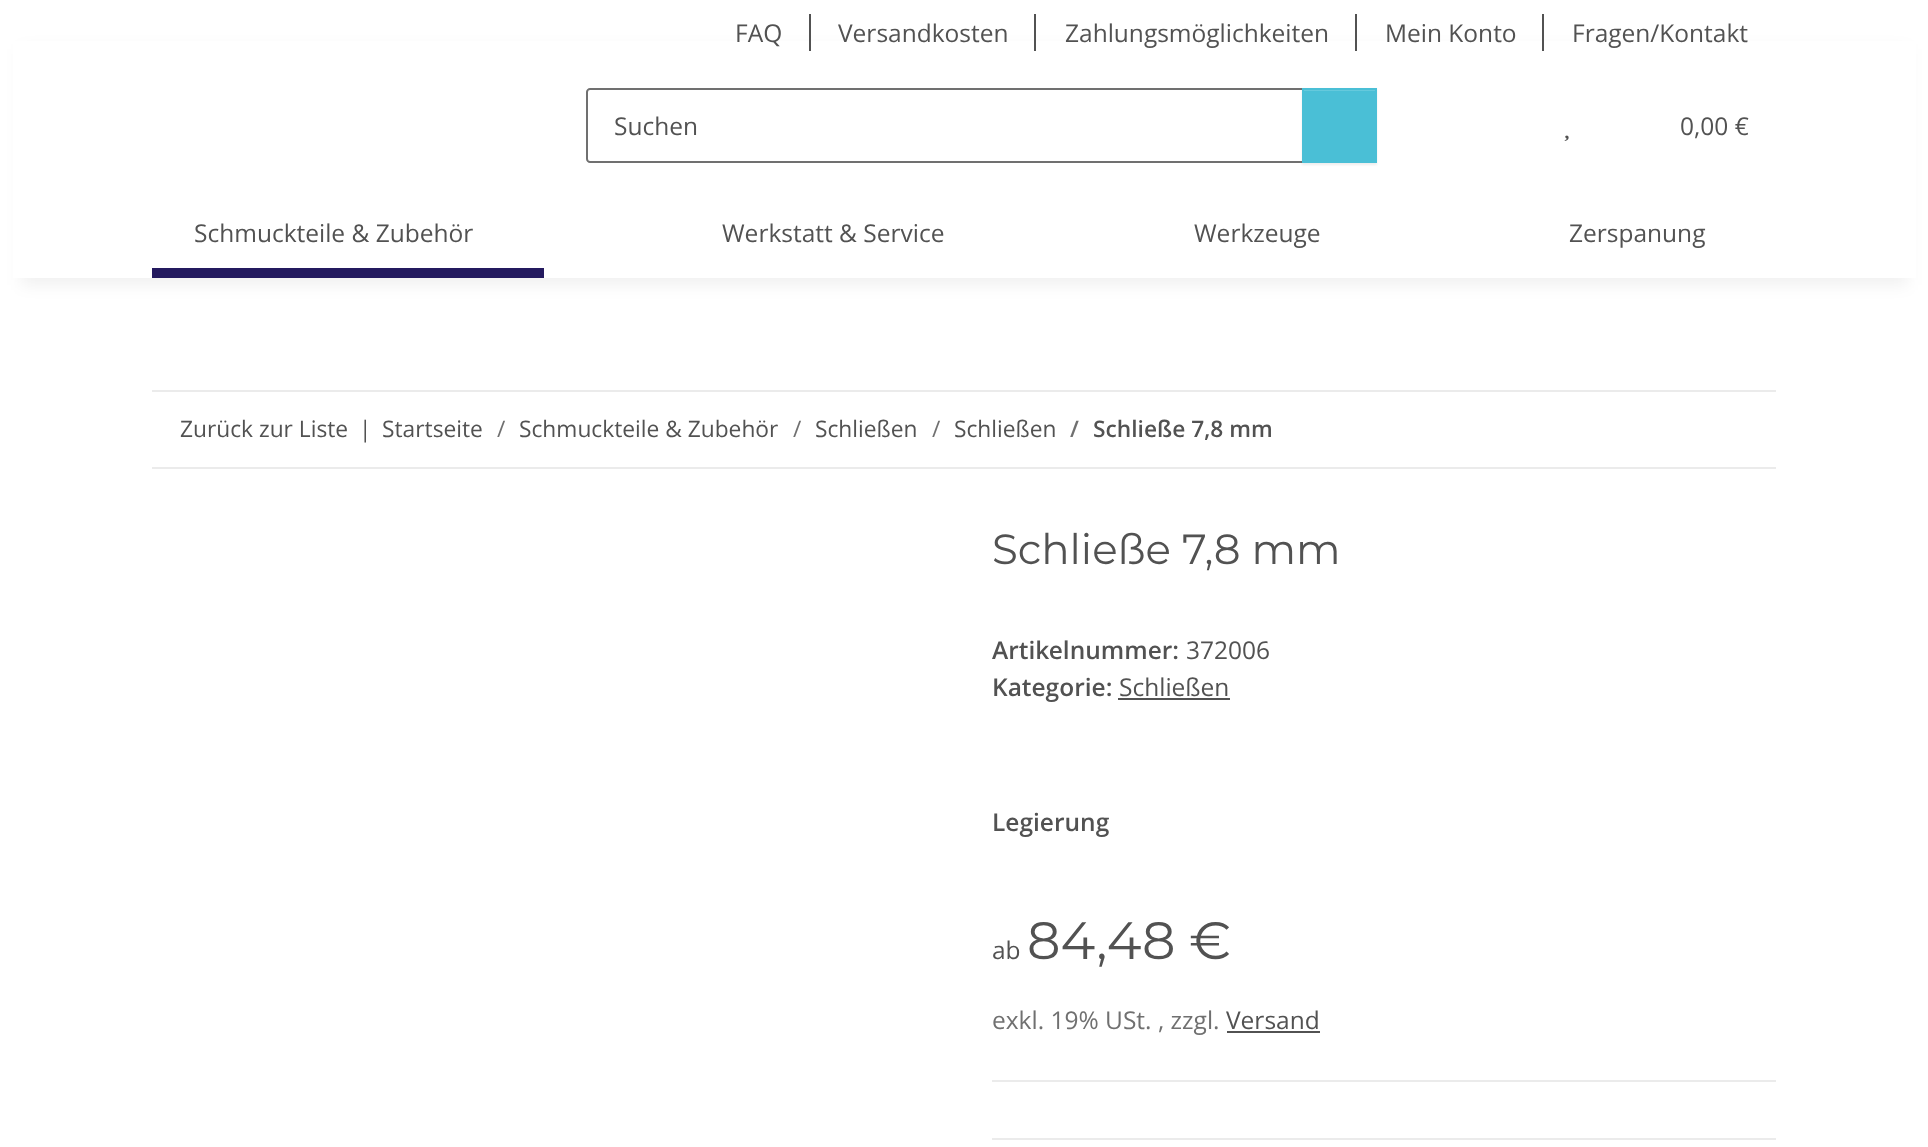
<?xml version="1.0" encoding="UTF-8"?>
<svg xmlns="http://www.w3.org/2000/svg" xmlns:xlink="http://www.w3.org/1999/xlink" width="1928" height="1147">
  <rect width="100%" height="100%" fill="#ffffff" />
  <rect x="21" y="49" width="1887" height="236" fill="#000000" fill-opacity="0.06" filter="blur(8px)" />
  <rect x="13" y="41" width="1903" height="237" fill="#ffffff" />
  <rect x="809" y="14" width="2" height="37" fill="#525252" />
  <rect x="1034" y="14" width="2" height="37" fill="#525252" />
  <rect x="1355" y="14" width="2" height="37" fill="#525252" />
  <rect x="1542" y="14" width="2" height="37" fill="#525252" />
  <path d="M 590 89 h 713 v 73 h -713 c -1.5 0 -3 -1.5 -3 -3 v -67 c 0 -1.5 1.5 -3 3 -3 z" fill="none" stroke="#707070" stroke-width="2" />
  <rect x="1302" y="89" width="75" height="76" fill="#000000" fill-opacity="0.07" filter="blur(1px)" />
  <rect x="1304" y="91" width="71" height="70" fill="#4abfd6" />
  <rect x="1304" y="90" width="72" height="1" fill="#65c9dc" />
  <rect x="1303" y="89" width="73" height="73" fill="none" stroke="#4abfd6" stroke-width="2" />
  <image x="1564" y="135" width="5" height="6" xlink:href="image1.png" />
  <rect x="152" y="268" width="392" height="10" fill="#241a5f" />
  <rect x="152" y="390" width="1624" height="2" fill="#ebebeb" />
  <rect x="152" y="467" width="1624" height="2" fill="#ebebeb" />
  <rect x="1118" y="698" width="112" height="2" fill="#525252" />
  <rect x="1227" y="1031" width="93" height="2" fill="#525252" />
  <rect x="992" y="1080" width="784" height="2" fill="#ebebeb" />
  <rect x="992" y="1138" width="784" height="2" fill="#ebebeb" />
  <text x="735" y="42" style="font-family: Open Sans; font-size: 24.5px; fill: #525252">FAQ</text>
  <text x="838" y="42" style="font-family: Open Sans; font-size: 24.5px; fill: #525252">Versandkosten</text>
  <text x="1065" y="42" style="font-family: Open Sans; font-size: 24.5px; fill: #525252">Zahlungsmöglichkeiten</text>
  <text x="1385" y="42" style="font-family: Open Sans; font-size: 24.5px; fill: #525252">Mein Konto</text>
  <text x="1572" y="42" style="font-family: Open Sans; font-size: 24.5px; fill: #525252">Fragen/Kontakt</text>
  <text x="614" y="135" style="font-family: Open Sans; font-size: 24.5px; fill: #525252">Suchen</text>
  <text x="1680" y="135" style="font-family: Open Sans; font-size: 24.5px; fill: #525252">0,00 €</text>
  <text x="194" y="242" style="font-family: Open Sans; font-size: 24.5px; fill: #525252">Schmuckteile &amp; Zubehör</text>
  <text x="722" y="242" style="font-family: Open Sans; font-size: 24.5px; fill: #525252">Werkstatt &amp; Service</text>
  <text x="1194" y="242" style="font-family: Open Sans; font-size: 24.5px; fill: #525252">Werkzeuge</text>
  <text x="1569" y="242" style="font-family: Open Sans; font-size: 24.5px; fill: #525252">Zerspanung</text>
  <text x="180" y="437" style="font-family: Open Sans; font-size: 22.75px; fill: #525252">Zurück zur Liste</text>
  <text x="359" y="437" style="font-family: Open Sans; font-size: 22.75px; fill: #525252">|</text>
  <text x="382" y="437" style="font-family: Open Sans; font-size: 22.75px; fill: #525252">Startseite</text>
  <text x="497" y="437" style="font-family: Open Sans; font-size: 22.75px; fill: #707070">/</text>
  <text x="519" y="437" style="font-family: Open Sans; font-size: 22.75px; fill: #525252">Schmuckteile &amp; Zubehör</text>
  <text x="793" y="437" style="font-family: Open Sans; font-size: 22.75px; fill: #707070">/</text>
  <text x="815" y="437" style="font-family: Open Sans; font-size: 22.75px; fill: #525252">Schließen</text>
  <text x="932" y="437" style="font-family: Open Sans; font-size: 22.75px; fill: #707070">/</text>
  <text x="954" y="437" style="font-family: Open Sans; font-size: 22.75px; fill: #525252">Schließen</text>
  <text x="1070" y="437" style="font-family: Open Sans; font-size: 22.75px; font-weight: 600; fill: #707070">/</text>
  <text x="1093" y="437" style="font-family: Open Sans; font-size: 22.75px; font-weight: 600; fill: #525252">Schließe 7,8 mm</text>
  <text x="992" y="564" style="font-family: Montserrat; font-size: 42px; fill: #525252">Schließe 7,8 mm</text>
  <text x="992" y="659" style="font-family: Open Sans; font-size: 24.5px; font-weight: 600; fill: #525252">Artikelnummer:</text>
  <text x="1186" y="659" style="font-family: Open Sans; font-size: 24.5px; fill: #525252">372006</text>
  <text x="992" y="696" style="font-family: Open Sans; font-size: 24.5px; font-weight: 600; fill: #525252">Kategorie:</text>
  <text x="1119" y="696" style="font-family: Open Sans; font-size: 24.5px; fill: #525252">Schließen</text>
  <text x="992" y="831" style="font-family: Open Sans; font-size: 24.5px; font-weight: 600; fill: #525252">Legierung</text>
  <text x="992" y="959" style="font-family: Open Sans; font-size: 24.5px; fill: #525252">ab</text>
  <text x="1027" y="959" style="font-family: Montserrat; font-size: 52.5px; fill: #525252">84,48 €</text>
  <text x="992" y="1029" style="font-family: Open Sans; font-size: 24.5px; fill: #707070">exkl. 19% USt. , zzgl.</text>
  <text x="1226" y="1029" style="font-family: Open Sans; font-size: 24.5px; fill: #525252">Versand</text>
</svg>
